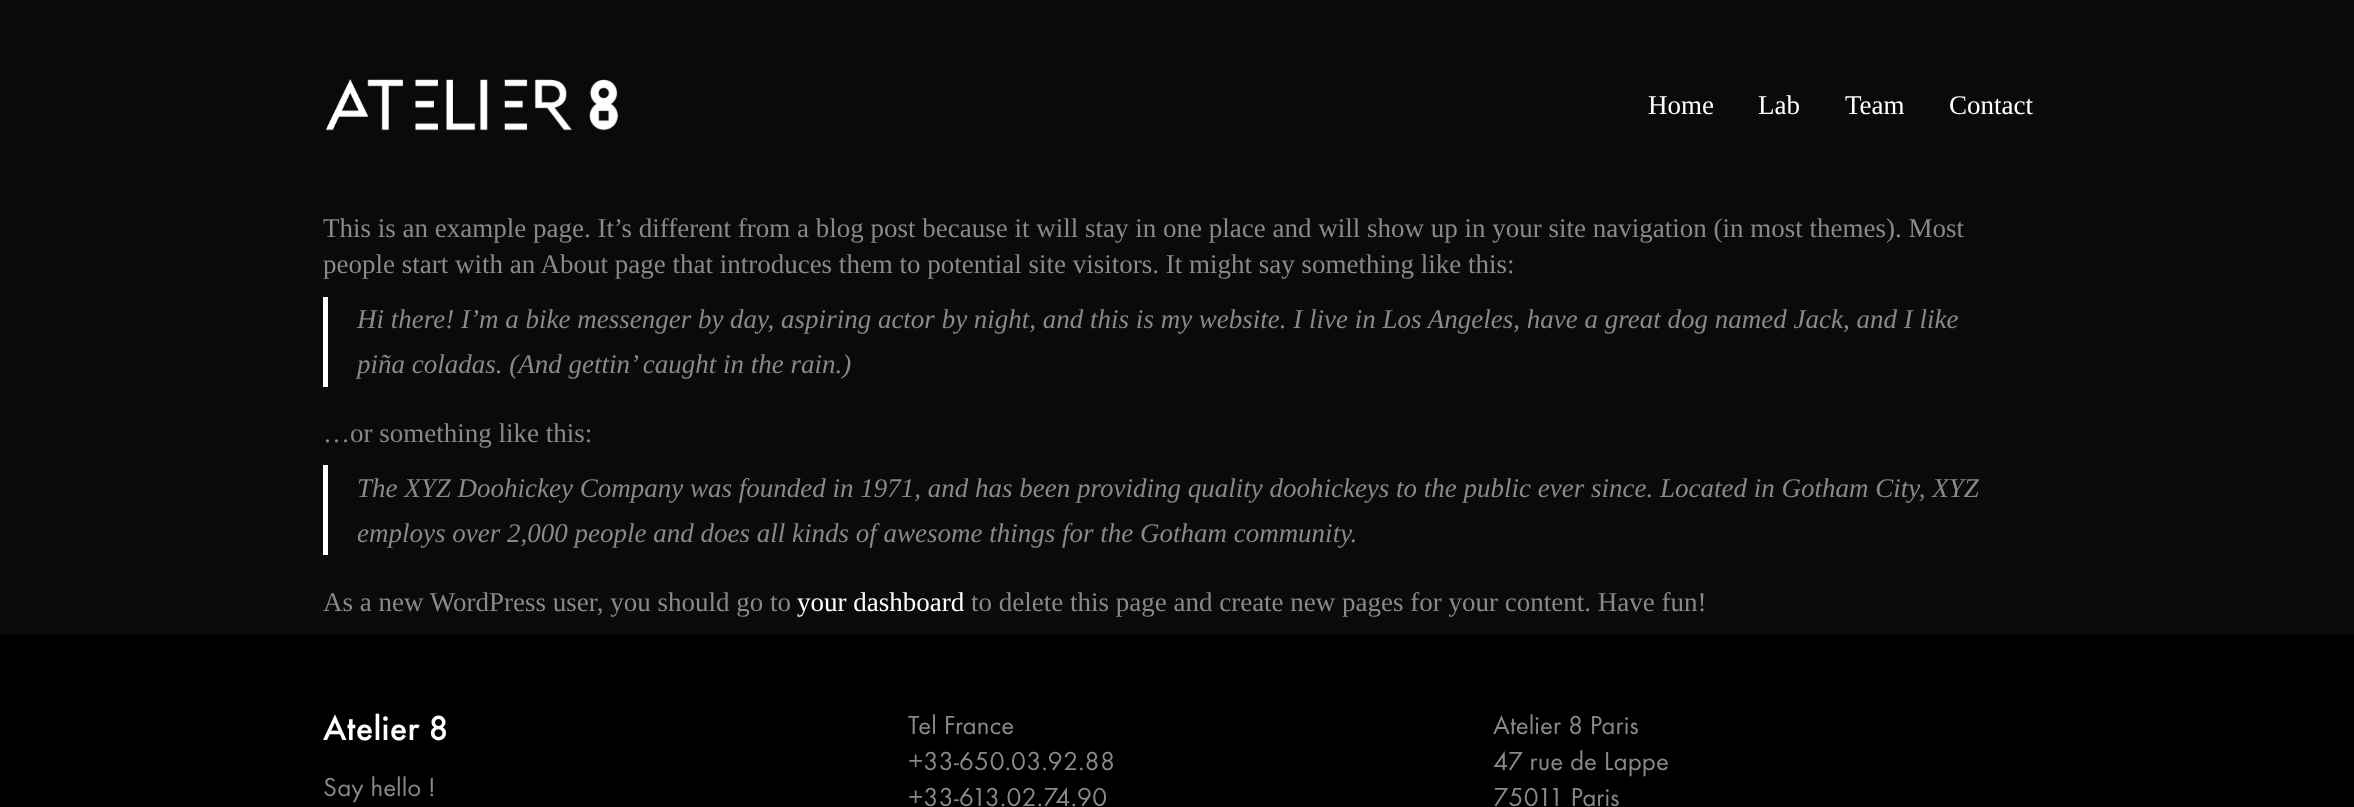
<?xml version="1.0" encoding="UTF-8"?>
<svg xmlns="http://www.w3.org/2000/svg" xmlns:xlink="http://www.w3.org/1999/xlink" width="2354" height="807">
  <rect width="100%" height="100%" fill="#0a0a0a" />
  <image x="325" y="79" width="294" height="52" xlink:href="image1.png" />
  <rect x="323" y="297" width="5" height="90" fill="#ffffff" />
  <rect x="323" y="465" width="5" height="90" fill="#ffffff" />
  <rect y="635" width="2354" height="172" fill="#000000" />
  <text x="1648" y="114" style="font-family: Liberation Serif; font-size: 27px; fill: #ffffff">Home</text>
  <text x="1758" y="114" style="font-family: Liberation Serif; font-size: 27px; fill: #ffffff">Lab</text>
  <text x="1845" y="114" style="font-family: Liberation Serif; font-size: 27px; fill: #ffffff">Team</text>
  <text x="1949" y="114" style="font-family: Liberation Serif; font-size: 27px; fill: #ffffff">Contact</text>
  <text x="323" y="237" style="font-family: Liberation Serif; font-size: 27px; fill: #898989">This is an example page. It’s different from a blog post because it will stay in one place and will show up in your site navigation (in most themes). Most</text>
  <text x="323" y="273" style="font-family: Liberation Serif; font-size: 27px; fill: #898989">people start with an About page that introduces them to potential site visitors. It might say something like this:</text>
  <text x="357" y="328" style="font-family: Liberation Serif; font-size: 27px; font-style: italic; fill: #898989">Hi there! I’m a bike messenger by day, aspiring actor by night, and this is my website. I live in Los Angeles, have a great dog named Jack, and I like</text>
  <text x="357" y="373" style="font-family: Liberation Serif; font-size: 27px; font-style: italic; fill: #898989">piña coladas. (And gettin’ caught in the rain.)</text>
  <text x="323" y="442" style="font-family: Liberation Serif; font-size: 27px; fill: #898989">…or something like this:</text>
  <text x="357" y="497" style="font-family: Liberation Serif; font-size: 27px; font-style: italic; fill: #898989">The XYZ Doohickey Company was founded in 1971, and has been providing quality doohickeys to the public ever since. Located in Gotham City, XYZ</text>
  <text x="357" y="542" style="font-family: Liberation Serif; font-size: 27px; font-style: italic; fill: #898989">employs over 2,000 people and does all kinds of awesome things for the Gotham community.</text>
  <text x="323" y="611" style="font-family: Liberation Serif; font-size: 27px; fill: #898989">As a new WordPress user, you should go to</text>
  <text x="797" y="611" style="font-family: Liberation Serif; font-size: 27px; fill: #ffffff">your dashboard</text>
  <text x="971" y="611" style="font-family: Liberation Serif; font-size: 27px; fill: #898989">to delete this page and create new pages for your content. Have fun!</text>
  <text x="323" y="740" style="font-family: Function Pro; font-size: 36px; font-weight: 500; fill: #ffffff">Atelier 8</text>
  <text x="323" y="796" style="font-family: Function Pro; font-size: 27px; fill: #898989">Say hello !</text>
  <text x="908" y="734" style="font-family: Function Pro; font-size: 27px; fill: #898989">Tel France</text>
  <text x="908" y="770" style="font-family: Function Pro; font-size: 27px; fill: #898989">+33-650.03.92.88</text>
  <text x="908" y="806" style="font-family: Function Pro; font-size: 27px; fill: #898989">+33-613.02.74.90</text>
  <text x="1493" y="734" style="font-family: Function Pro; font-size: 27px; fill: #898989">Atelier 8 Paris</text>
  <text x="1493" y="770" style="font-family: Function Pro; font-size: 27px; fill: #898989">47 rue de Lappe</text>
  <text x="1493" y="806" style="font-family: Function Pro; font-size: 27px; fill: #898989">75011 Paris</text>
</svg>
